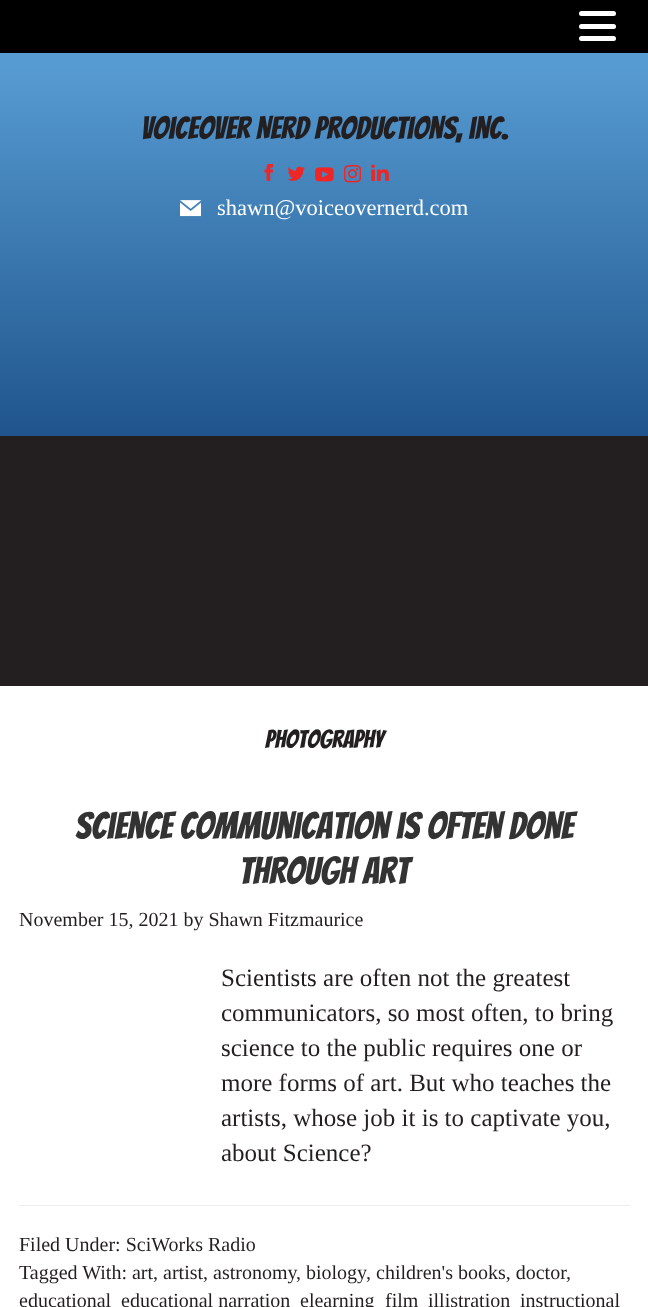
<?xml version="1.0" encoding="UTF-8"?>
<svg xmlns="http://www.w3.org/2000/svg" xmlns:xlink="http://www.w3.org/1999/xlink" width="648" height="1307">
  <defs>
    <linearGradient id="g1" gradientUnits="userSpaceOnUse" x1="324" y1="436" x2="324" y2="44"><stop offset="0" stop-color="#1f558c" /><stop offset="1" stop-color="#599fd6" /></linearGradient>
  </defs>
  <rect width="100%" height="100%" fill="#ffffff" />
  <rect width="648" height="53" fill="#000000" />
  <rect x="579" y="11" width="37" height="5" rx="2.5" fill="#ffffff" />
  <rect x="579" y="24" width="37" height="5" rx="2.5" fill="#ffffff" />
  <rect x="579" y="36" width="37" height="5" rx="2.5" fill="#ffffff" />
  <rect y="53" width="648" height="383" fill="url(#g1)" />
  <image x="264" y="164" width="10" height="17" xlink:href="image1.png" />
  <image x="288" y="166" width="17" height="15" xlink:href="image2.png" />
  <image x="315" y="167" width="19" height="15" xlink:href="image3.png" />
  <image x="344" y="165" width="17" height="18" xlink:href="image4.png" />
  <image x="371" y="164" width="18" height="17" xlink:href="image5.png" />
  <image x="180" y="200" width="21" height="17" xlink:href="image6.png" />
  <rect y="436" width="648" height="250" fill="#231f20" />
  <rect x="19" y="1205" width="611" height="1" fill="#eeeeee" />
  <text x="141" y="139" style="font-family: Bangers; font-size: 31.25px; fill: #231f20">Voiceover Nerd Productions, inc.</text>
  <text x="217" y="215" style="font-family: Liberation Serif; font-size: 22.5px; fill: #ffffff">shawn@voiceovernerd.com</text>
  <text x="265" y="748" style="font-family: Bangers; font-size: 25px; fill: #231f20">photography</text>
  <text x="75" y="839" style="font-family: Bangers; font-size: 37.5px; fill: #333333">Science Communication is Often Done</text>
  <text x="239" y="884" style="font-family: Bangers; font-size: 37.5px; fill: #333333">Through Art</text>
  <text x="19" y="926" style="font-family: Liberation Serif; font-size: 20px; fill: #231f20">November 15, 2021 by Shawn Fitzmaurice</text>
  <text x="221" y="986" style="font-family: Liberation Serif; font-size: 25px; fill: #231f20">Scientists are often not the greatest</text>
  <text x="221" y="1021" style="font-family: Liberation Serif; font-size: 25px; fill: #231f20">communicators, so most often, to bring</text>
  <text x="221" y="1056" style="font-family: Liberation Serif; font-size: 25px; fill: #231f20">science to the public requires one or</text>
  <text x="221" y="1091" style="font-family: Liberation Serif; font-size: 25px; fill: #231f20">more forms of art. But who teaches the</text>
  <text x="221" y="1126" style="font-family: Liberation Serif; font-size: 25px; fill: #231f20">artists, whose job it is to captivate you,</text>
  <text x="221" y="1161" style="font-family: Liberation Serif; font-size: 25px; fill: #231f20">about Science?</text>
  <text x="19" y="1251" style="font-family: Liberation Serif; font-size: 20px; fill: #231f20">Filed Under: SciWorks Radio</text>
  <text x="19" y="1279" style="font-family: Liberation Serif; font-size: 20px; fill: #231f20">Tagged With: art, artist, astronomy</text>
  <text x="296" y="1279" style="font-family: Liberation Serif; font-size: 20px; fill: #231f20">, biology</text>
  <text x="366" y="1279" style="font-family: Liberation Serif; font-size: 20px; fill: #231f20">, children's books, doctor</text>
  <text x="566" y="1279" style="font-family: Liberation Serif; font-size: 20px; fill: #231f20">,</text>
  <text x="19" y="1307" style="font-family: Liberation Serif; font-size: 20px; fill: #231f20">educational</text>
  <text x="121" y="1307" style="font-family: Liberation Serif; font-size: 20px; fill: #231f20">educational narration</text>
  <text x="300" y="1307" style="font-family: Liberation Serif; font-size: 20px; fill: #231f20">elearning</text>
  <text x="385" y="1307" style="font-family: Liberation Serif; font-size: 20px; fill: #231f20">film</text>
  <text x="428" y="1307" style="font-family: Liberation Serif; font-size: 20px; fill: #231f20">illistration</text>
  <text x="520" y="1307" style="font-family: Liberation Serif; font-size: 20px; fill: #231f20">instructional</text>
</svg>
